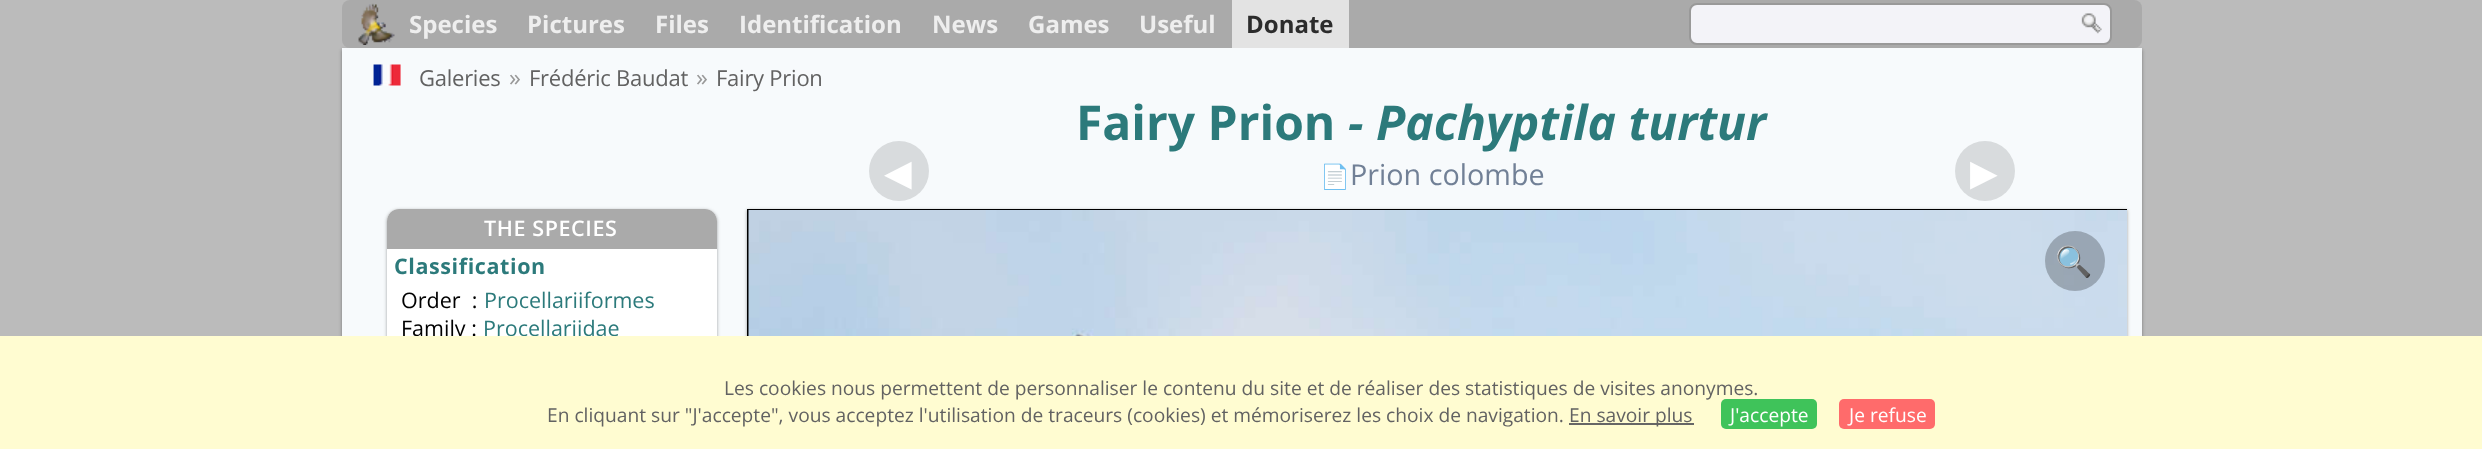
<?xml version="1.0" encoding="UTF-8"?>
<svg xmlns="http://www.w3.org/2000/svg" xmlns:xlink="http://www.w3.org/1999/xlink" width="2482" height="449">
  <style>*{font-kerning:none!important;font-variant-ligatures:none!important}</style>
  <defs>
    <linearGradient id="g1" gradientUnits="userSpaceOnUse" x1="1241" y1="0" x2="1241" y2="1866"><stop offset="0" stop-color="#bbbbbb" /><stop offset="0.2" stop-color="#bbbbbb" /><stop offset="0.36" stop-color="#dddddd" /><stop offset="0.9" stop-color="#ffffff" /><stop offset="1" stop-color="#ffffff" /></linearGradient>
    <clipPath id="clip1"><rect x="747" y="209" width="1380" height="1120" /></clipPath>
  </defs>
  <rect width="100%" height="100%" fill="#ffffff" />
  <rect width="2482" height="336" fill="url(#g1)" />
  <rect x="342" y="50" width="1800" height="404" fill="#000000" fill-opacity="0.24" filter="blur(1.5px)" />
  <rect x="342" y="50" width="1800" height="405" fill="#000000" fill-opacity="0.12" filter="blur(2px)" />
  <rect x="342" width="1800" height="48" rx="8" fill="#aaaaaa" />
  <image x="358" y="3" width="37" height="42" xlink:href="image1.png" />
  <rect x="1232" width="117" height="48" fill="#e3e3e3" />
  <rect x="1690" y="4" width="421" height="40" rx="7" fill="#f3f3f8" stroke="#999999" stroke-width="2" />
  <image x="2081" y="13" width="21" height="21" xlink:href="image2.png" />
  <rect x="342" y="48" width="1800" height="288" fill="#f7fafc" />
  <image x="373" y="64" width="28" height="22" xlink:href="image3.png" />
  <rect x="387" y="210" width="330" height="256" rx="12" fill="#000000" fill-opacity="0.24" filter="blur(1.5px)" />
  <rect x="387" y="210" width="330" height="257" rx="12" fill="#000000" fill-opacity="0.12" filter="blur(2px)" />
  <rect x="387" y="209" width="330" height="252" rx="12" fill="#ffffff" />
  <path d="M 399 209 h 306 c 6.5 0 12 5.5 12 12 v 28 h -330 v -28 c 0 -6.5 5.5 -12 12 -12 z" fill="#aaaaaa" />
  <circle cx="899" cy="171" r="30" fill="#d8dbdd" />
  <circle cx="1985" cy="171" r="30" fill="#d8dbdd" />
  <rect x="747" y="210" width="1380" height="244" fill="#000000" fill-opacity="0.24" filter="blur(1.5px)" />
  <rect x="747" y="210" width="1380" height="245" fill="#000000" fill-opacity="0.12" filter="blur(2px)" />
  <g clip-path="url(#clip1)">
    <rect x="748" y="210" width="1381" height="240" fill="none" stroke="#000000" stroke-width="2" />
  </g>
  <image x="748" y="210" width="1379" height="126" xlink:href="image4.png" />
  <circle cx="2075" cy="261" r="30" fill="#000000" fill-opacity="0.24" />
  <text x="409" y="33" style="font-family: Open Sans; font-size: 24px; font-weight: bold; fill: #eeeeee">Species</text>
  <text x="527" y="33" style="font-family: Open Sans; font-size: 24px; font-weight: bold; fill: #eeeeee">Pictures</text>
  <text x="655" y="33" style="font-family: Open Sans; font-size: 24px; font-weight: bold; fill: #eeeeee">Files</text>
  <text x="739" y="33" style="font-family: Open Sans; font-size: 24px; font-weight: bold; fill: #eeeeee">Identification</text>
  <text x="932" y="33" style="font-family: Open Sans; font-size: 24px; font-weight: bold; fill: #eeeeee">News</text>
  <text x="1028" y="33" style="font-family: Open Sans; font-size: 24px; font-weight: bold; fill: #eeeeee">Games</text>
  <text x="1139" y="33" style="font-family: Open Sans; font-size: 24px; font-weight: bold; fill: #eeeeee">Useful</text>
  <text x="1246" y="33" style="font-family: Open Sans; font-size: 24px; font-weight: bold; fill: #2c2c2c">Donate</text>
  <text x="419" y="86" style="font-family: Open Sans; font-size: 22px; letter-spacing: -0.25px; fill: #626262">Galeries</text>
  <text x="509" y="86" style="font-family: Open Sans; font-size: 24px; fill: #999999">»</text>
  <text x="529" y="86" style="font-family: Open Sans; font-size: 22px; letter-spacing: -0.25px; fill: #626262">Frédéric Baudat</text>
  <text x="696" y="86" style="font-family: Open Sans; font-size: 24px; fill: #999999">»</text>
  <text x="716" y="86" style="font-family: Open Sans; font-size: 22px; letter-spacing: -0.25px; fill: #626262">Fairy Prion</text>
  <text x="1076" y="140" style="font-family: Open Sans; font-size: 48px; font-weight: bold; fill: #2c7a7b">Fairy Prion</text>
  <text x="1348" y="140" style="font-family: Open Sans; font-size: 48px; font-weight: bold; font-style: italic; fill: #2c7a7b">- Pachyptila turtur</text>
  <text x="1320" y="185" style="font-family: Noto Color Emoji; font-size: 24px; fill: #718096">📄</text>
  <text x="1350" y="185" style="font-family: Open Sans; font-size: 28.75px; fill: #718096">Prion colombe</text>
  <text x="484" y="236" style="font-family: Open Sans; font-size: 21.5px; font-weight: 600; letter-spacing: 0.6px; fill: #ffffff">THE SPECIES</text>
  <text x="394" y="274" style="font-family: Open Sans; font-size: 21.5px; font-weight: bold; letter-spacing: 0.6px; fill: #2c7a7b">Classification</text>
  <text x="401" y="308" style="font-family: Open Sans; font-size: 21.5px; fill: #000000" xml:space="preserve">Order  :</text>
  <text x="484" y="308" style="font-family: Open Sans; font-size: 21.5px; fill: #2c7a7b">Procellariiformes</text>
  <text x="401" y="336" style="font-family: Open Sans; font-size: 21.5px; fill: #000000">Family :</text>
  <text x="483" y="336" style="font-family: Open Sans; font-size: 21.5px; fill: #2c7a7b">Procellariidae</text>
  <text x="884" y="185" style="font-family: DejaVu Sans; font-size: 36px; fill: #ffffff">◀</text>
  <text x="1970" y="185" style="font-family: DejaVu Sans; font-size: 36px; fill: #ffffff">▶</text>
  <text x="2055" y="272" style="font-family: Noto Color Emoji; font-size: 30px; fill: #c2cad2">🔍</text>
  <rect y="336" width="2482" height="113" fill="#fffcd1" />
  <text x="724" y="395" style="font-family: Open Sans; font-size: 19.2px; fill: #626262">Les cookies nous permettent de personnaliser le contenu du site et de réaliser des statistiques de visites anonymes.</text>
  <text x="547" y="422" style="font-family: Open Sans; font-size: 19.2px; fill: #626262">En cliquant sur "J'accepte", vous acceptez l'utilisation de traceurs (cookies) et mémoriserez les choix de navigation.</text>
  <rect x="1569" y="423" width="125" height="2" fill="#666666" />
  <text x="1569" y="422" style="font-family: Open Sans; font-size: 19.2px; fill: #626262">En savoir plus</text>
  <rect x="1721" y="399" width="96" height="30" rx="5" fill="#3fc35a" />
  <text x="1730" y="422" style="font-family: Open Sans; font-size: 19.2px; fill: #ffffff">J'accepte</text>
  <rect x="1839" y="399" width="96" height="30" rx="5" fill="#ff6b6b" />
  <text x="1849" y="422" style="font-family: Open Sans; font-size: 19.2px; fill: #ffffff">Je refuse</text>
</svg>
